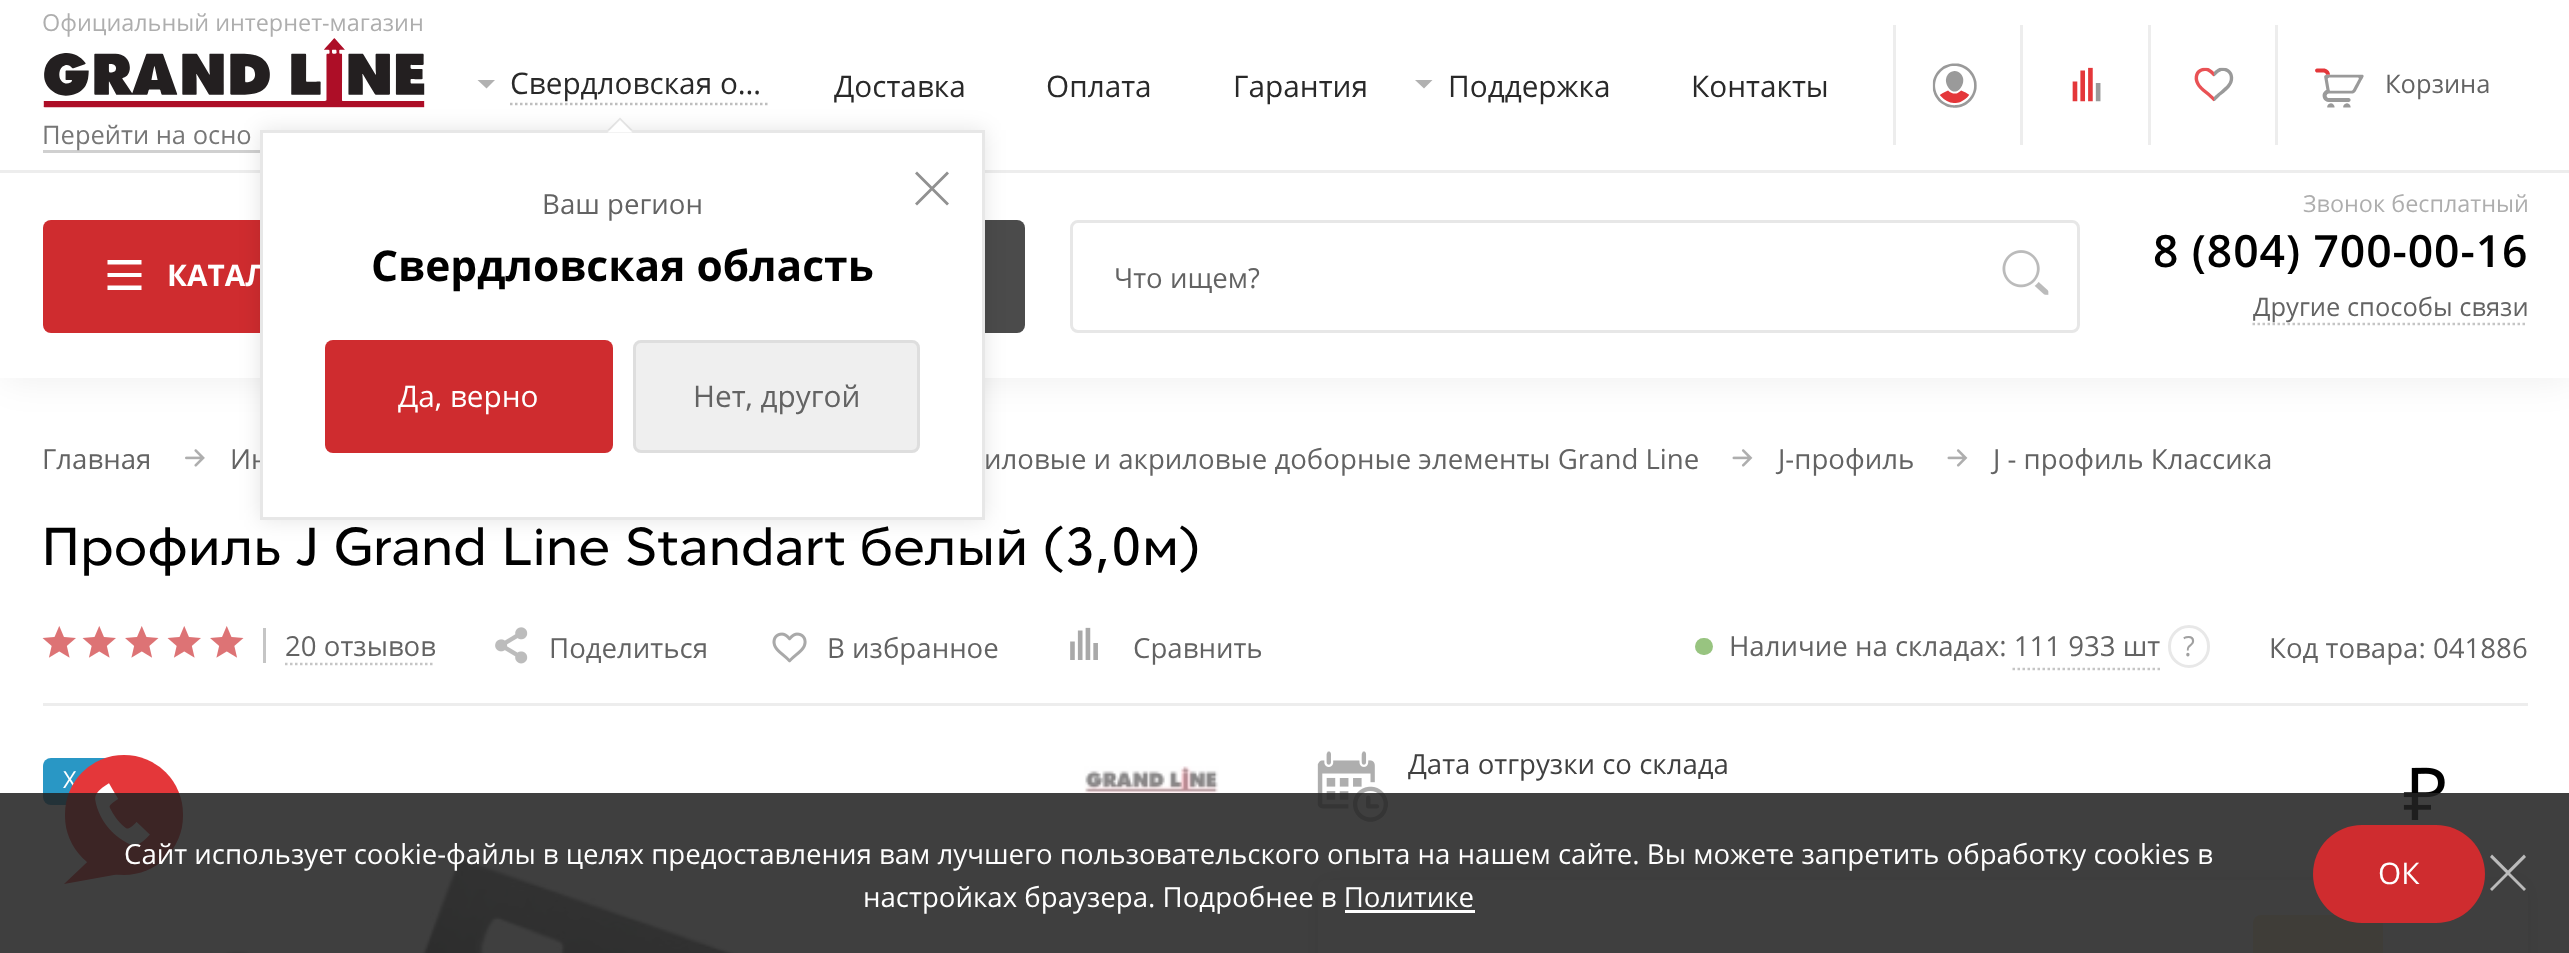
<?xml version="1.0" encoding="UTF-8"?>
<svg xmlns="http://www.w3.org/2000/svg" xmlns:xlink="http://www.w3.org/1999/xlink" width="2569" height="953">
  <defs>
    <clipPath id="clip1"><path d="M 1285 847 h 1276 v 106 h -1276 z m 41 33 h 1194 c 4.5 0 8 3.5 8 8 v 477 c 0 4.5 -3.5 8 -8 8 h -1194 c -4.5 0 -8 -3.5 -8 -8 v -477 c 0 -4.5 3.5 -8 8 -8 z" clip-rule="evenodd" /></clipPath>
  </defs>
  <rect width="100%" height="100%" fill="#ffffff" />
  <rect x="3" width="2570" height="378" fill="#000000" fill-opacity="0.07" filter="blur(19px)" />
  <rect width="2569" height="378" fill="#ffffff" />
  <rect y="170" width="2569" height="3" fill="#ededed" />
  <image x="43" y="38" width="382" height="70" xlink:href="image1.png" />
  <rect x="43" y="150" width="217" height="3" fill="#d0d0d0" />
  <path d="M 495 80 h -17.5 l 9 8.5 z" fill="#b1b1b1" />
  <path d="M 510 104 h 257.5" fill="none" stroke="#bebebe" stroke-width="2.5" stroke-dasharray="2.5 2.5" />
  <rect x="43" y="220" width="482" height="113" rx="8" fill="#cf2c2f" />
  <rect x="568" y="220" width="457" height="113" rx="8" fill="#4b4b4b" />
  <rect x="260" y="130" width="725" height="390" fill="#000000" fill-opacity="0.1" filter="blur(10.5px)" />
  <path d="M 632.5 130 h -25 l 12.5 -12.5 z" fill="#cacaca" fill-opacity="0.45" />
  <path d="M 1432.5 80 h -17.5 l 9 8.5 z" fill="#b1b1b1" />
  <rect x="1893" y="25" width="3" height="120" fill="#ededed" />
  <image x="1932" y="63" width="45" height="45" xlink:href="image2.png" />
  <rect x="2020" y="25" width="3" height="120" fill="#ededed" />
  <image x="2072" y="67" width="29" height="35" xlink:href="image3.png" />
  <rect x="2148" y="25" width="3" height="120" fill="#ededed" />
  <image x="2194" y="67" width="40" height="35" xlink:href="image4.png" />
  <rect x="2275" y="25" width="3" height="120" fill="#ededed" />
  <image x="2315" y="68" width="49" height="40" xlink:href="image5.png" />
  <path d="M 107.5 277 h 34 v -4 h -34 z m 0 -17 v 4.5 h 34 v -4.5 z m 0 30 h 34 v -4.5 h -34 z" fill="#ffffff" />
  <rect x="1071.5" y="221.5" width="1007" height="110" rx="6.5" fill="none" stroke="#e7e7e7" stroke-width="3" />
  <image x="2002" y="250" width="47" height="45" xlink:href="image6.png" />
  <path d="M 2252.5 324 h 275" fill="none" stroke="#c5c5c5" stroke-width="2.5" stroke-dasharray="2.5 2.5" />
  <image x="185" y="449" width="20" height="18" xlink:href="image7.png" />
  <image x="1732" y="449" width="21" height="18" xlink:href="image8.png" />
  <image x="1947" y="449" width="21" height="18" xlink:href="image8.png" />
  <image x="42" y="626" width="34" height="32" xlink:href="image9.png" />
  <image x="82" y="626" width="34" height="32" xlink:href="image9.png" />
  <image x="125" y="626" width="34" height="32" xlink:href="image10.png" />
  <image x="167" y="626" width="34" height="32" xlink:href="image9.png" />
  <image x="210" y="626" width="34" height="32" xlink:href="image10.png" />
  <path d="M 285 664 h 150" fill="none" stroke="#c5c5c5" stroke-width="2.5" stroke-dasharray="2.5 2.5" />
  <rect x="263" y="628" width="3" height="35" fill="#c5c5c5" />
  <image x="495" y="627" width="33" height="37" xlink:href="image11.png" />
  <image x="772" y="632" width="35" height="31" xlink:href="image12.png" />
  <image x="1070" y="627" width="28" height="33" xlink:href="image13.png" />
  <rect x="1695" y="638" width="18" height="17" rx="8.5" fill="#98c480" />
  <rect x="2169.5" y="626.5" width="39" height="40" rx="19.5" fill="none" stroke="#e8e8e8" stroke-width="3" />
  <path d="M 2012.5 669 h 147.5" fill="none" stroke="#c5c5c5" stroke-width="2.5" stroke-dasharray="2.5 2.5" />
  <rect x="43" y="703" width="2485" height="3" fill="#ededed" />
  <rect x="43" y="758" width="85" height="47" rx="8" fill="#2997c5" />
  <image x="1084" y="766" width="135" height="29" xlink:href="image14.png" />
  <image x="205" y="856" width="535" height="97" xlink:href="image15.png" />
  <image x="1317" y="751" width="71" height="71" xlink:href="image16.png" />
  <image x="2403" y="767" width="42" height="53" xlink:href="image17.png" />
  <g clip-path="url(#clip1)">
    <rect x="1318" y="880" width="1210" height="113" rx="8" fill="#000000" fill-opacity="0.14" filter="blur(10.5px)" />
  </g>
  <rect x="2253" y="915" width="130" height="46" rx="8" fill="#ffecc8" />
  <text x="42" y="31" style="font-family: Open Sans; font-size: 23.4px; fill: #aeaeae">Официальный интернет-магазин</text>
  <text x="42" y="144" style="font-family: Open Sans; font-size: 25.5px; fill: #777777">Перейти на осно</text>
  <text x="510" y="94" style="font-family: Open Sans; font-size: 29.75px; fill: #292929">Свердловская о…</text>
  <text x="834" y="97" style="font-family: Open Sans; font-size: 29.75px; fill: #292929">Доставка</text>
  <text x="1046" y="97" style="font-family: Open Sans; font-size: 29.75px; fill: #292929">Оплата</text>
  <text x="1233" y="97" style="font-family: Open Sans; font-size: 29.75px; fill: #292929">Гарантия</text>
  <text x="1448" y="97" style="font-family: Open Sans; font-size: 29.75px; fill: #292929">Поддержка</text>
  <text x="1691" y="97" style="font-family: Open Sans; font-size: 29.75px; fill: #292929">Контакты</text>
  <text x="2385" y="93" style="font-family: Open Sans; font-size: 25.5px; fill: #636363">Корзина</text>
  <text x="167" y="286" style="font-family: Open Sans; font-size: 29.75px; font-weight: bold; fill: #ffffff">КАТАЛ</text>
  <text x="1114" y="288" style="font-family: Open Sans; font-size: 27.62px; fill: #636363">Что ищем?</text>
  <text x="2303" y="212" style="font-family: Open Sans; font-size: 23.4px; fill: #aeaeae">Звонок бесплатный</text>
  <text x="2153" y="267" style="font-family: Open Sans; font-size: 44.6px; font-weight: 600; letter-spacing: 0.9px; fill: #000000">8 (804) 700-00-16</text>
  <text x="2253" y="316" style="font-family: Open Sans; font-size: 25.5px; fill: #636363">Другие способы связи</text>
  <text x="42" y="469" style="font-family: Open Sans; font-size: 27.62px; fill: #636363">Главная</text>
  <text x="230" y="469" style="font-family: Open Sans; font-size: 27.62px; fill: #636363">Ин</text>
  <rect x="261.5" y="131.5" width="722" height="387" fill="#ffffff" stroke="#e7e7e7" stroke-width="3" />
  <rect x="633" y="340" width="287" height="113" rx="8" fill="#efefef" />
  <rect x="634.5" y="341.5" width="284" height="110" rx="6.5" fill="none" stroke="#cacaca" stroke-opacity="0.45" stroke-width="3" />
  <text x="693" y="407" style="font-family: Open Sans; font-size: 29.75px; fill: #636363">Нет, другой</text>
  <rect x="325" y="340" width="288" height="113" rx="8" fill="#cf2c2f" />
  <text x="398" y="407" style="font-family: Open Sans; font-size: 29.75px; fill: #ffffff">Да, верно</text>
  <path d="M 632.5 132.5 h -25 l 12.5 -12.5 z" fill="#ffffff" />
  <path d="M 934 188.5 l 15 15 l -2 2 l -15 -15 l -15 15 l -2 -2 l 15 -15 l -15 -15 l 2 -2 l 15 15 l 15 -15 l 2 2 z" fill="#919191" />
  <text x="371" y="281" style="font-family: Open Sans; font-size: 42.5px; font-weight: bold; fill: #000000">Свердловская область</text>
  <text x="542" y="214" style="font-family: Open Sans; font-size: 27.62px; fill: #636363">Ваш регион</text>
  <text x="984" y="469" style="font-family: Open Sans; font-size: 27.62px; fill: #636363">иловые и акриловые доборные элементы Grand Line</text>
  <text x="1778" y="469" style="font-family: Open Sans; font-size: 27.62px; fill: #636363">J-профиль</text>
  <text x="1993" y="469" style="font-family: Open Sans; font-size: 27.62px; fill: #636363">J - профиль Классика</text>
  <text x="42" y="565" style="font-family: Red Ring; font-size: 53.1px; letter-spacing: 1.05px; fill: #000000">Профиль J Grand Line Standart белый (3,0м)</text>
  <text x="285" y="656" style="font-family: Open Sans; font-size: 27.62px; fill: #636363">20 отзывов</text>
  <text x="549" y="658" style="font-family: Open Sans; font-size: 27.62px; fill: #636363">Поделиться</text>
  <text x="827" y="658" style="font-family: Open Sans; font-size: 27.62px; fill: #636363">В избранное</text>
  <text x="1133" y="658" style="font-family: Open Sans; font-size: 27.62px; fill: #636363">Сравнить</text>
  <text x="1729" y="656" style="font-family: Open Sans; font-size: 27.62px; fill: #636363">Наличие на складах: 111 933 шт</text>
  <text x="2183" y="656" style="font-family: Open Sans; font-size: 27.62px; fill: #a0a0a0">?</text>
  <text x="2269" y="658" style="font-family: Open Sans; font-size: 27.62px; fill: #636363">Код товара: 041886</text>
  <text x="63" y="788" style="font-family: Open Sans; font-size: 23.4px; fill: #ffffff">Х</text>
  <text x="1408" y="774" style="font-family: Open Sans; font-size: 27.62px; fill: #404040">Дата отгрузки со склада</text>
  <rect x="65" y="755" width="118" height="120" rx="59" fill="#e4373a" />
  <image x="95" y="783" width="55" height="63" xlink:href="image18.png" />
  <path d="M 125 873 l -61 11 l 37 -35 z" fill="#e4373a" />
  <rect y="793" width="2569" height="160" fill="#222222" fill-opacity="0.87" />
  <text x="124" y="864" style="font-family: Open Sans; font-size: 27.62px; fill: #ffffff">Сайт использует cookie-файлы в целях предоставления вам лучшего пользовательского опыта на нашем сайте. Вы можете запретить обработку cookies в</text>
  <text x="863" y="907" style="font-family: Open Sans; font-size: 27.62px; fill: #ffffff">настройках браузера. Подробнее в Политике</text>
  <rect x="1345" y="910" width="130" height="3" fill="#ffffff" />
  <rect x="2313" y="825" width="172" height="98" rx="49" fill="#cf2c2f" />
  <text x="2378" y="884" style="font-family: Open Sans; font-size: 29.75px; fill: #ffffff">ОК</text>
  <path d="M 2510 873 l 16 16 l -2 2 l -16 -16 l -16 16 l -2 -2 l 16 -16 l -16 -16 l 2 -2.5 l 16 16 l 16 -16 l 2 2.5 z" fill="#bbbbbb" />
</svg>
